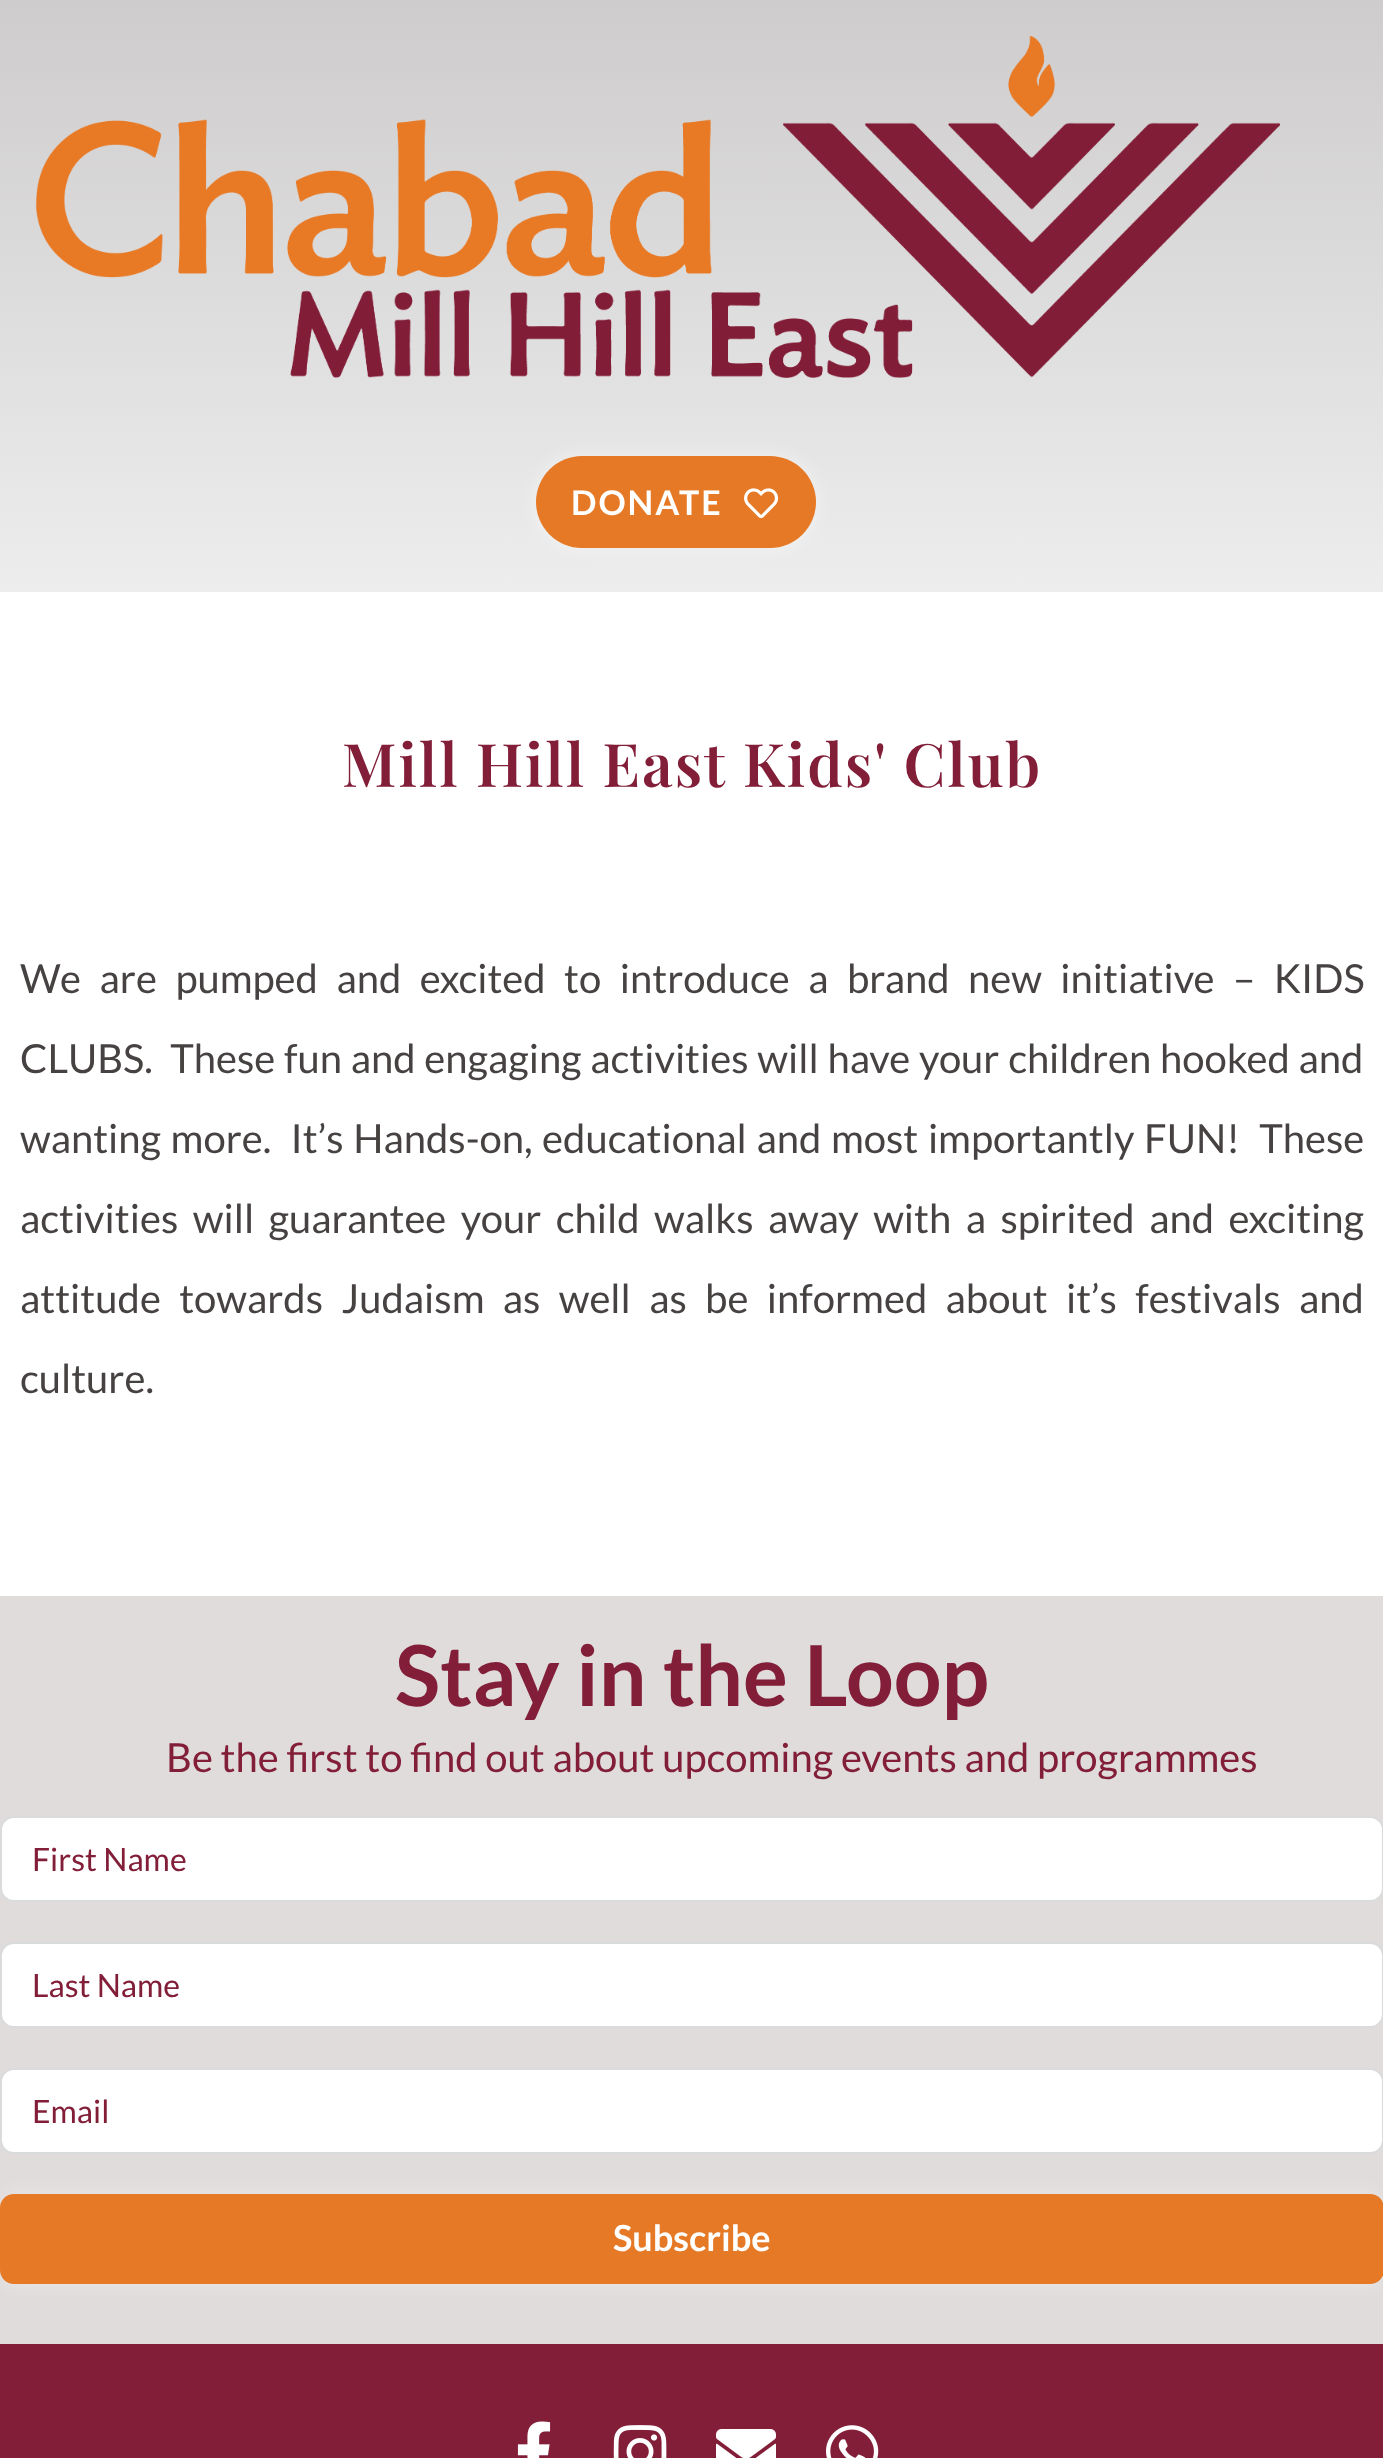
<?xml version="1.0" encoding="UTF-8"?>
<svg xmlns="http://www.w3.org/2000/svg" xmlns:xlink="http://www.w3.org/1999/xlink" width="1383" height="2458">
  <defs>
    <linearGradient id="g1" gradientUnits="userSpaceOnUse" x1="692" y1="0" x2="692" y2="592"><stop offset="0" stop-color="#cecccc" /><stop offset="1" stop-color="#ededed" /></linearGradient>
  </defs>
  <rect width="100%" height="100%" fill="#ffffff" />
  <rect width="1383" height="592" fill="url(#g1)" />
  <image x="36" y="36" width="1244" height="342" xlink:href="image1.png" />
  <rect x="536" y="456" width="280" height="92" rx="46" fill="#ffffff" fill-opacity="0.5" filter="blur(10px)" />
  <rect x="536" y="456" width="280" height="92" rx="46" fill="#e67925" />
  <image x="744" y="488" width="35" height="31" xlink:href="image2.png" />
  <rect y="1596" width="1383" height="748" fill="#e0dcdc" />
  <rect x="1" y="1817" width="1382" height="84" rx="13" fill="#ffffff" stroke="#dadbdd" stroke-width="2" />
  <rect x="1" y="1943" width="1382" height="84" rx="13" fill="#ffffff" stroke="#dadbdd" stroke-width="2" />
  <rect x="1" y="2069" width="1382" height="84" rx="13" fill="#ffffff" stroke="#dadbdd" stroke-width="2" />
  <rect y="2194" width="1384" height="90" rx="14" fill="#faf4f4" fill-opacity="0.5" filter="blur(10px)" />
  <rect y="2194" width="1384" height="90" rx="14" fill="#e67925" />
  <rect y="2344" width="1383" height="114" fill="#821e38" />
  <image x="517" y="2421" width="34" height="37" xlink:href="image3.png" />
  <image x="613" y="2425" width="54" height="33" xlink:href="image4.png" />
  <image x="716" y="2429" width="60" height="29" xlink:href="image5.png" />
  <image x="826" y="2425" width="53" height="33" xlink:href="image6.png" />
  <text x="571" y="515" style="font-family: Lato; font-size: 34px; font-weight: bold; letter-spacing: 2px; fill: #ffffff">DONATE</text>
  <text x="342" y="787" style="font-family: Playfair Display; font-size: 60px; font-weight: 600; letter-spacing: 2px; fill: #821e38">Mill Hill East Kids' Club</text>
  <text x="20" y="993" word-spacing="10.75" style="font-family: Lato; font-size: 40px; fill: #474242">We are pumped and excited to introduce a brand new initiative – KIDS</text>
  <text x="20" y="1073" word-spacing="1" style="font-family: Lato; font-size: 40px; fill: #474242" xml:space="preserve">CLUBS.  These fun and engaging activities will have your children hooked and</text>
  <text x="20" y="1153" word-spacing="1.9" style="font-family: Lato; font-size: 40px; fill: #474242" xml:space="preserve">wanting more.  It’s Hands-on, educational and most importantly FUN!  These</text>
  <text x="20" y="1233" word-spacing="6.75" style="font-family: Lato; font-size: 40px; fill: #474242">activities will guarantee your child walks away with a spirited and exciting</text>
  <text x="20" y="1313" word-spacing="10.6" style="font-family: Lato; font-size: 40px; fill: #474242">attitude towards Judaism as well as be informed about it’s festivals and</text>
  <text x="20" y="1393" style="font-family: Lato; font-size: 40px; fill: #474242">culture.</text>
  <text x="395" y="1706" style="font-family: Lato; font-size: 84px; font-weight: bold; fill: #821e38">Stay in the Loop</text>
  <text x="166" y="1772" style="font-family: Lato; font-size: 40px; fill: #821e38">Be the first to find out about upcoming events and programmes</text>
  <text x="32" y="1871" style="font-family: Lato; font-size: 32px; fill: #821e38">First Name</text>
  <text x="32" y="1997" style="font-family: Lato; font-size: 32px; fill: #821e38">Last Name</text>
  <text x="32" y="2123" style="font-family: Lato; font-size: 32px; fill: #821e38">Email</text>
  <text x="613" y="2251" style="font-family: Lato; font-size: 36px; font-weight: bold; fill: #ffffff">Subscribe</text>
</svg>
